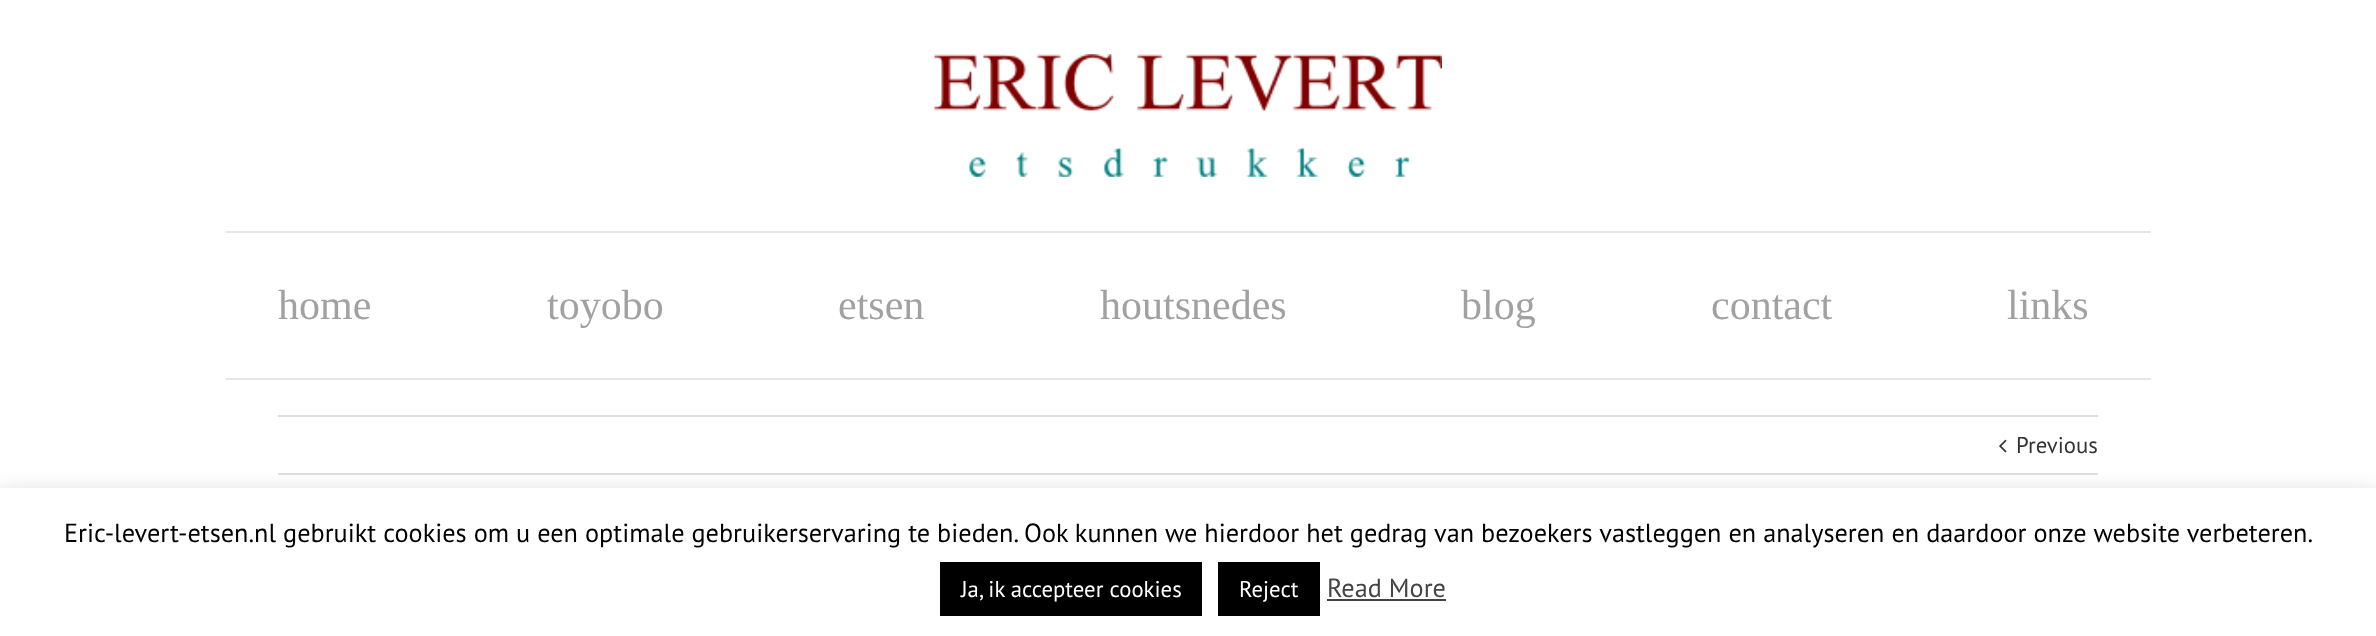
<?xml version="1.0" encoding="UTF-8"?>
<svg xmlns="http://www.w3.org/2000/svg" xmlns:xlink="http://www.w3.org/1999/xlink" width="2376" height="636">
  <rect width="100%" height="100%" fill="#ffffff" />
  <rect x="226" y="231" width="1925" height="2" fill="#e5e5e5" />
  <image x="934" y="54" width="508" height="123" xlink:href="image1.png" />
  <rect x="226" y="378" width="1925" height="2" fill="#e5e5e5" />
  <rect x="278" y="415" width="1820" height="2" fill="#e0dede" />
  <rect x="278" y="473" width="1820" height="2" fill="#e0dede" />
  <image x="1999" y="439" width="8" height="14" xlink:href="image2.png" />
  <rect y="487" width="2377" height="148" fill="#acabab" fill-opacity="0.3" filter="blur(9px)" />
  <rect y="488" width="2376" height="148" fill="#ffffff" />
  <rect x="940" y="562" width="262" height="54" fill="#000000" />
  <rect x="1218" y="562" width="102" height="54" fill="#000000" />
  <rect x="1327" y="599" width="119" height="2" fill="#444444" />
  <text x="278" y="319" style="font-family: Liberation Serif; font-size: 42px; fill: #a1a1a1">home</text>
  <text x="547" y="319" style="font-family: Liberation Serif; font-size: 42px; fill: #a1a1a1">toyobo</text>
  <text x="838" y="319" style="font-family: Liberation Serif; font-size: 42px; fill: #a1a1a1">etsen</text>
  <text x="1100" y="319" style="font-family: Liberation Serif; font-size: 42px; fill: #a1a1a1">houtsnedes</text>
  <text x="1461" y="319" style="font-family: Liberation Serif; font-size: 42px; fill: #a1a1a1">blog</text>
  <text x="1711" y="319" style="font-family: Liberation Serif; font-size: 42px; fill: #a1a1a1">contact</text>
  <text x="2007" y="319" style="font-family: Liberation Serif; font-size: 42px; fill: #a1a1a1">links</text>
  <text x="2016" y="453" style="font-family: PT Sans; font-size: 22.75px; fill: #333333">Previous</text>
  <text x="64" y="542" style="font-family: PT Sans; font-size: 26.25px; fill: #000000">Eric-levert-etsen.nl gebruikt cookies om u een optimale gebruikerservaring te bieden. Ook kunnen we hierdoor het gedrag van bezoekers vastleggen en analyseren en daardoor onze website verbeteren.</text>
  <text x="961" y="597" style="font-family: PT Sans; font-size: 22.75px; fill: #ffffff">Ja, ik accepteer cookies</text>
  <text x="1239" y="597" style="font-family: PT Sans; font-size: 22.75px; fill: #ffffff">Reject</text>
  <text x="1327" y="597" style="font-family: PT Sans; font-size: 26.25px; fill: #444444">Read More</text>
</svg>
